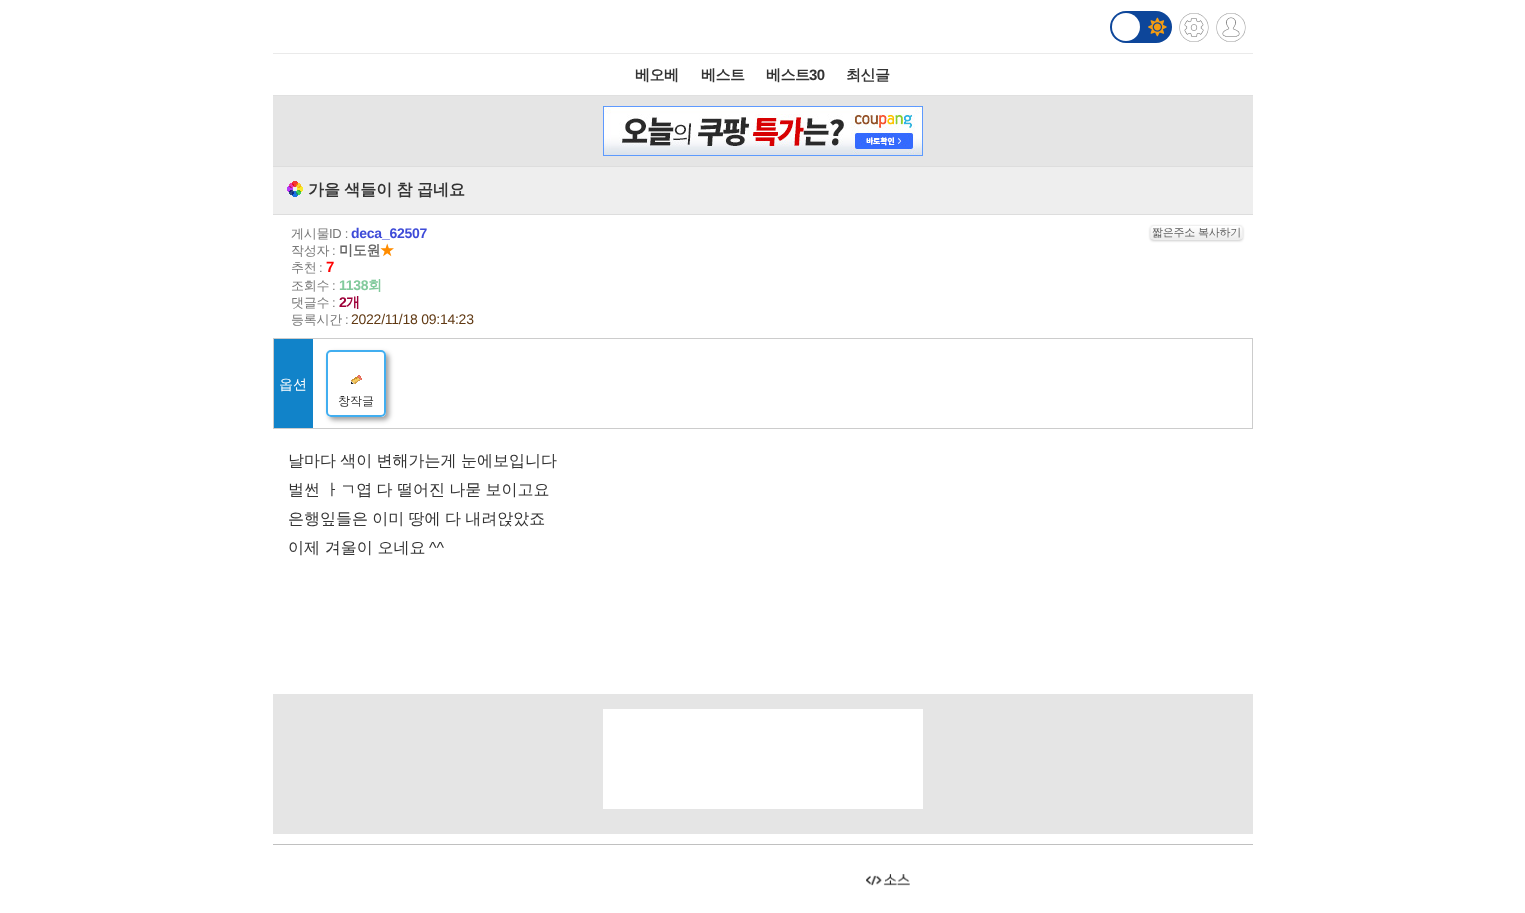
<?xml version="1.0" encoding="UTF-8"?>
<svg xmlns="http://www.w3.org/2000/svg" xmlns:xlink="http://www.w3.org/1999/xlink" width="1525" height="913">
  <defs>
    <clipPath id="clip1"><rect x="1150" y="225" width="93" height="15" rx="4" /></clipPath>
    <linearGradient id="g1" gradientUnits="userSpaceOnUse" x1="1151" y1="226" x2="1151" y2="239"><stop offset="0" stop-color="#ffffff" /><stop offset="1" stop-color="#ededed" /></linearGradient>
    <clipPath id="clip2"><path d="M 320 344 h 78 v 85 h -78 z m 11 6 h 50 c 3 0 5 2 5 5 v 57 c 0 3 -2 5 -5 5 h -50 c -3 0 -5 -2 -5 -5 v -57 c 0 -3 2 -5 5 -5 z" clip-rule="evenodd" /></clipPath>
  </defs>
  <rect width="100%" height="100%" fill="#ffffff" />
  <rect x="273" y="53" width="980" height="1" fill="#eaeaea" />
  <rect x="1110" y="11" width="62" height="32" rx="16" fill="#0d469a" />
  <circle cx="1126" cy="27" r="14" fill="#ffffff" />
  <image x="1148" y="17" width="19" height="20" xlink:href="image1.png" />
  <image x="1179" y="13" width="30" height="29" xlink:href="image2.png" />
  <image x="1216" y="13" width="30" height="29" xlink:href="image3.png" />
  <rect x="273" y="95" width="980" height="1" fill="#e0e0e0" />
  <rect x="273" y="96" width="980" height="70" fill="#e5e5e5" />
  <image x="603" y="106" width="320" height="50" xlink:href="image4.png" />
  <rect x="273" y="167" width="980" height="47" fill="#eeeeee" />
  <rect x="273" y="166" width="980" height="1" fill="#dddddd" />
  <rect x="273" y="214" width="980" height="1" fill="#dddddd" />
  <image x="287" y="181" width="16" height="16" xlink:href="image5.png" />
  <rect x="1150" y="226" width="93" height="15" rx="4" fill="#000000" fill-opacity="0.2" filter="blur(1px)" />
  <g clip-path="url(#clip1)">
    <rect x="1150" y="226" width="93" height="13" fill="url(#g1)" />
  </g>
  <rect x="1150.5" y="225.5" width="92" height="14" rx="3.5" fill="none" stroke="#efefef" />
  <rect x="273" y="338" width="980" height="1" fill="#cccccc" />
  <rect x="1252" y="338" width="1" height="91" fill="#cccccc" />
  <rect x="273" y="428" width="980" height="1" fill="#cccccc" />
  <rect x="273" y="338" width="1" height="91" fill="#cccccc" />
  <rect x="274" y="339" width="39" height="89" fill="#1183c9" />
  <g clip-path="url(#clip2)">
    <rect x="329" y="353" width="60" height="67" rx="5" fill="#000000" fill-opacity="0.38" filter="blur(2.5px)" />
  </g>
  <rect x="327" y="351" width="58" height="65" rx="4" fill="none" stroke="#41aef0" stroke-width="2" />
  <image x="351" y="375" width="11" height="9" xlink:href="image6.png" />
  <rect x="273" y="694" width="980" height="140" fill="#e5e5e5" />
  <rect x="603" y="709" width="320" height="100" fill="#ffffff" />
  <rect x="273" y="844" width="980" height="1" fill="#c0c0c0" />
  <image x="866" y="874" width="44" height="12" xlink:href="image7.png" />
  <text x="635" y="80" style="font-family: WenQuanYi Zen Hei; font-size: 15px; font-weight: bold; letter-spacing: -0.5px; fill: #333333">베오베</text>
  <text x="701" y="80" style="font-family: WenQuanYi Zen Hei; font-size: 15px; font-weight: bold; letter-spacing: -0.5px; fill: #333333">베스트</text>
  <text x="766" y="80" style="font-family: WenQuanYi Zen Hei; font-size: 15px; font-weight: bold; letter-spacing: -0.5px; fill: #333333">베스트</text>
  <text x="809" y="80" style="font-family: Liberation Sans; font-size: 15px; font-weight: bold; letter-spacing: -0.5px; fill: #333333">30</text>
  <text x="846" y="80" style="font-family: WenQuanYi Zen Hei; font-size: 15px; font-weight: bold; letter-spacing: -0.5px; fill: #333333">최신글</text>
  <text x="308" y="195" word-spacing="-0.5" style="font-family: WenQuanYi Zen Hei; font-size: 16px; font-weight: bold; fill: #333333">가을 색들이 참 곱네요</text>
  <text x="291" y="238" style="font-family: WenQuanYi Zen Hei; font-size: 13px; font-weight: 500; letter-spacing: -0.25px; fill: #777777">게시물</text>
  <text x="329" y="238" style="font-family: Liberation Sans; font-size: 13px; letter-spacing: -0.25px; fill: #777777">ID :</text>
  <text x="351" y="238" style="font-family: Liberation Sans; font-size: 14px; font-weight: bold; letter-spacing: -0.25px; fill: #3e4bd8">deca_62507</text>
  <text x="1152" y="236" style="font-family: WenQuanYi Zen Hei; font-size: 11px; font-weight: 500; letter-spacing: -0.25px; fill: #606060">짧은주소 복사하기</text>
  <text x="291" y="255" style="font-family: WenQuanYi Zen Hei; font-size: 13px; font-weight: 500; letter-spacing: -0.25px; fill: #777777">작성자</text>
  <text x="332" y="255" style="font-family: Liberation Sans; font-size: 13px; letter-spacing: -0.25px; fill: #777777">:</text>
  <text x="339" y="255" style="font-family: WenQuanYi Zen Hei; font-size: 14px; font-weight: bold; letter-spacing: -0.25px; fill: #666666">미도원</text>
  <text x="380" y="255" style="font-family: WenQuanYi Zen Hei; font-size: 14px; font-weight: bold; letter-spacing: -0.25px; fill: #ff8c00">★</text>
  <text x="291" y="272" style="font-family: WenQuanYi Zen Hei; font-size: 13px; font-weight: 500; letter-spacing: -0.25px; fill: #777777">추천</text>
  <text x="319" y="272" style="font-family: Liberation Sans; font-size: 13px; letter-spacing: -0.25px; fill: #777777">:</text>
  <text x="326" y="272" style="font-family: Liberation Sans; font-size: 15px; font-weight: bold; letter-spacing: -0.25px; fill: #ff0000">7</text>
  <text x="291" y="290" style="font-family: WenQuanYi Zen Hei; font-size: 13px; font-weight: 500; letter-spacing: -0.25px; fill: #777777">조회수</text>
  <text x="332" y="290" style="font-family: Liberation Sans; font-size: 13px; letter-spacing: -0.25px; fill: #777777">:</text>
  <text x="339" y="290" style="font-family: Liberation Sans; font-size: 14px; font-weight: bold; letter-spacing: -0.25px; fill: #82ca9c">1138</text>
  <text x="368" y="290" style="font-family: WenQuanYi Zen Hei; font-size: 14px; font-weight: bold; letter-spacing: -0.25px; fill: #82ca9c">회</text>
  <text x="291" y="307" style="font-family: WenQuanYi Zen Hei; font-size: 13px; font-weight: 500; letter-spacing: -0.25px; fill: #777777">댓글수</text>
  <text x="332" y="307" style="font-family: Liberation Sans; font-size: 13px; letter-spacing: -0.25px; fill: #777777">:</text>
  <text x="339" y="307" style="font-family: Liberation Sans; font-size: 14px; font-weight: bold; letter-spacing: -0.25px; fill: #9e0039">2</text>
  <text x="346" y="307" style="font-family: WenQuanYi Zen Hei; font-size: 14px; font-weight: bold; letter-spacing: -0.25px; fill: #9e0039">개</text>
  <text x="291" y="324" style="font-family: WenQuanYi Zen Hei; font-size: 13px; font-weight: 500; letter-spacing: -0.25px; fill: #777777">등록시간</text>
  <text x="345" y="324" style="font-family: Liberation Sans; font-size: 13px; letter-spacing: -0.25px; fill: #777777">:</text>
  <text x="351" y="324" style="font-family: Liberation Sans; font-size: 14px; letter-spacing: -0.25px; fill: #603913">2022/11/18 09:14:23</text>
  <text x="279" y="389" style="font-family: WenQuanYi Zen Hei; font-size: 14px; font-weight: 500; fill: #ffffff">옵션</text>
  <text x="338" y="405" style="font-family: WenQuanYi Zen Hei; font-size: 12px; font-weight: 500; fill: #333333">창작글</text>
  <text x="288" y="466" word-spacing="-0.5" style="font-family: WenQuanYi Zen Hei; font-size: 16px; font-weight: 500; fill: #333333">날마다 색이 변해가는게 눈에보입니다</text>
  <text x="288" y="495" word-spacing="-0.5" style="font-family: WenQuanYi Zen Hei; font-size: 16px; font-weight: 500; fill: #333333">벌썬 ㅏㄱ엽 다 떨어진 나묻 보이고요</text>
  <text x="288" y="524" word-spacing="-0.5" style="font-family: WenQuanYi Zen Hei; font-size: 16px; font-weight: 500; fill: #333333">은행잎들은 이미 땅에 다 내려앉았죠</text>
  <text x="288" y="553" style="font-family: WenQuanYi Zen Hei; font-size: 16px; font-weight: 500; fill: #333333">이제 겨울이 오네요</text>
  <text x="429" y="553" style="font-family: Liberation Sans; font-size: 16px; fill: #333333">^^</text>
</svg>
